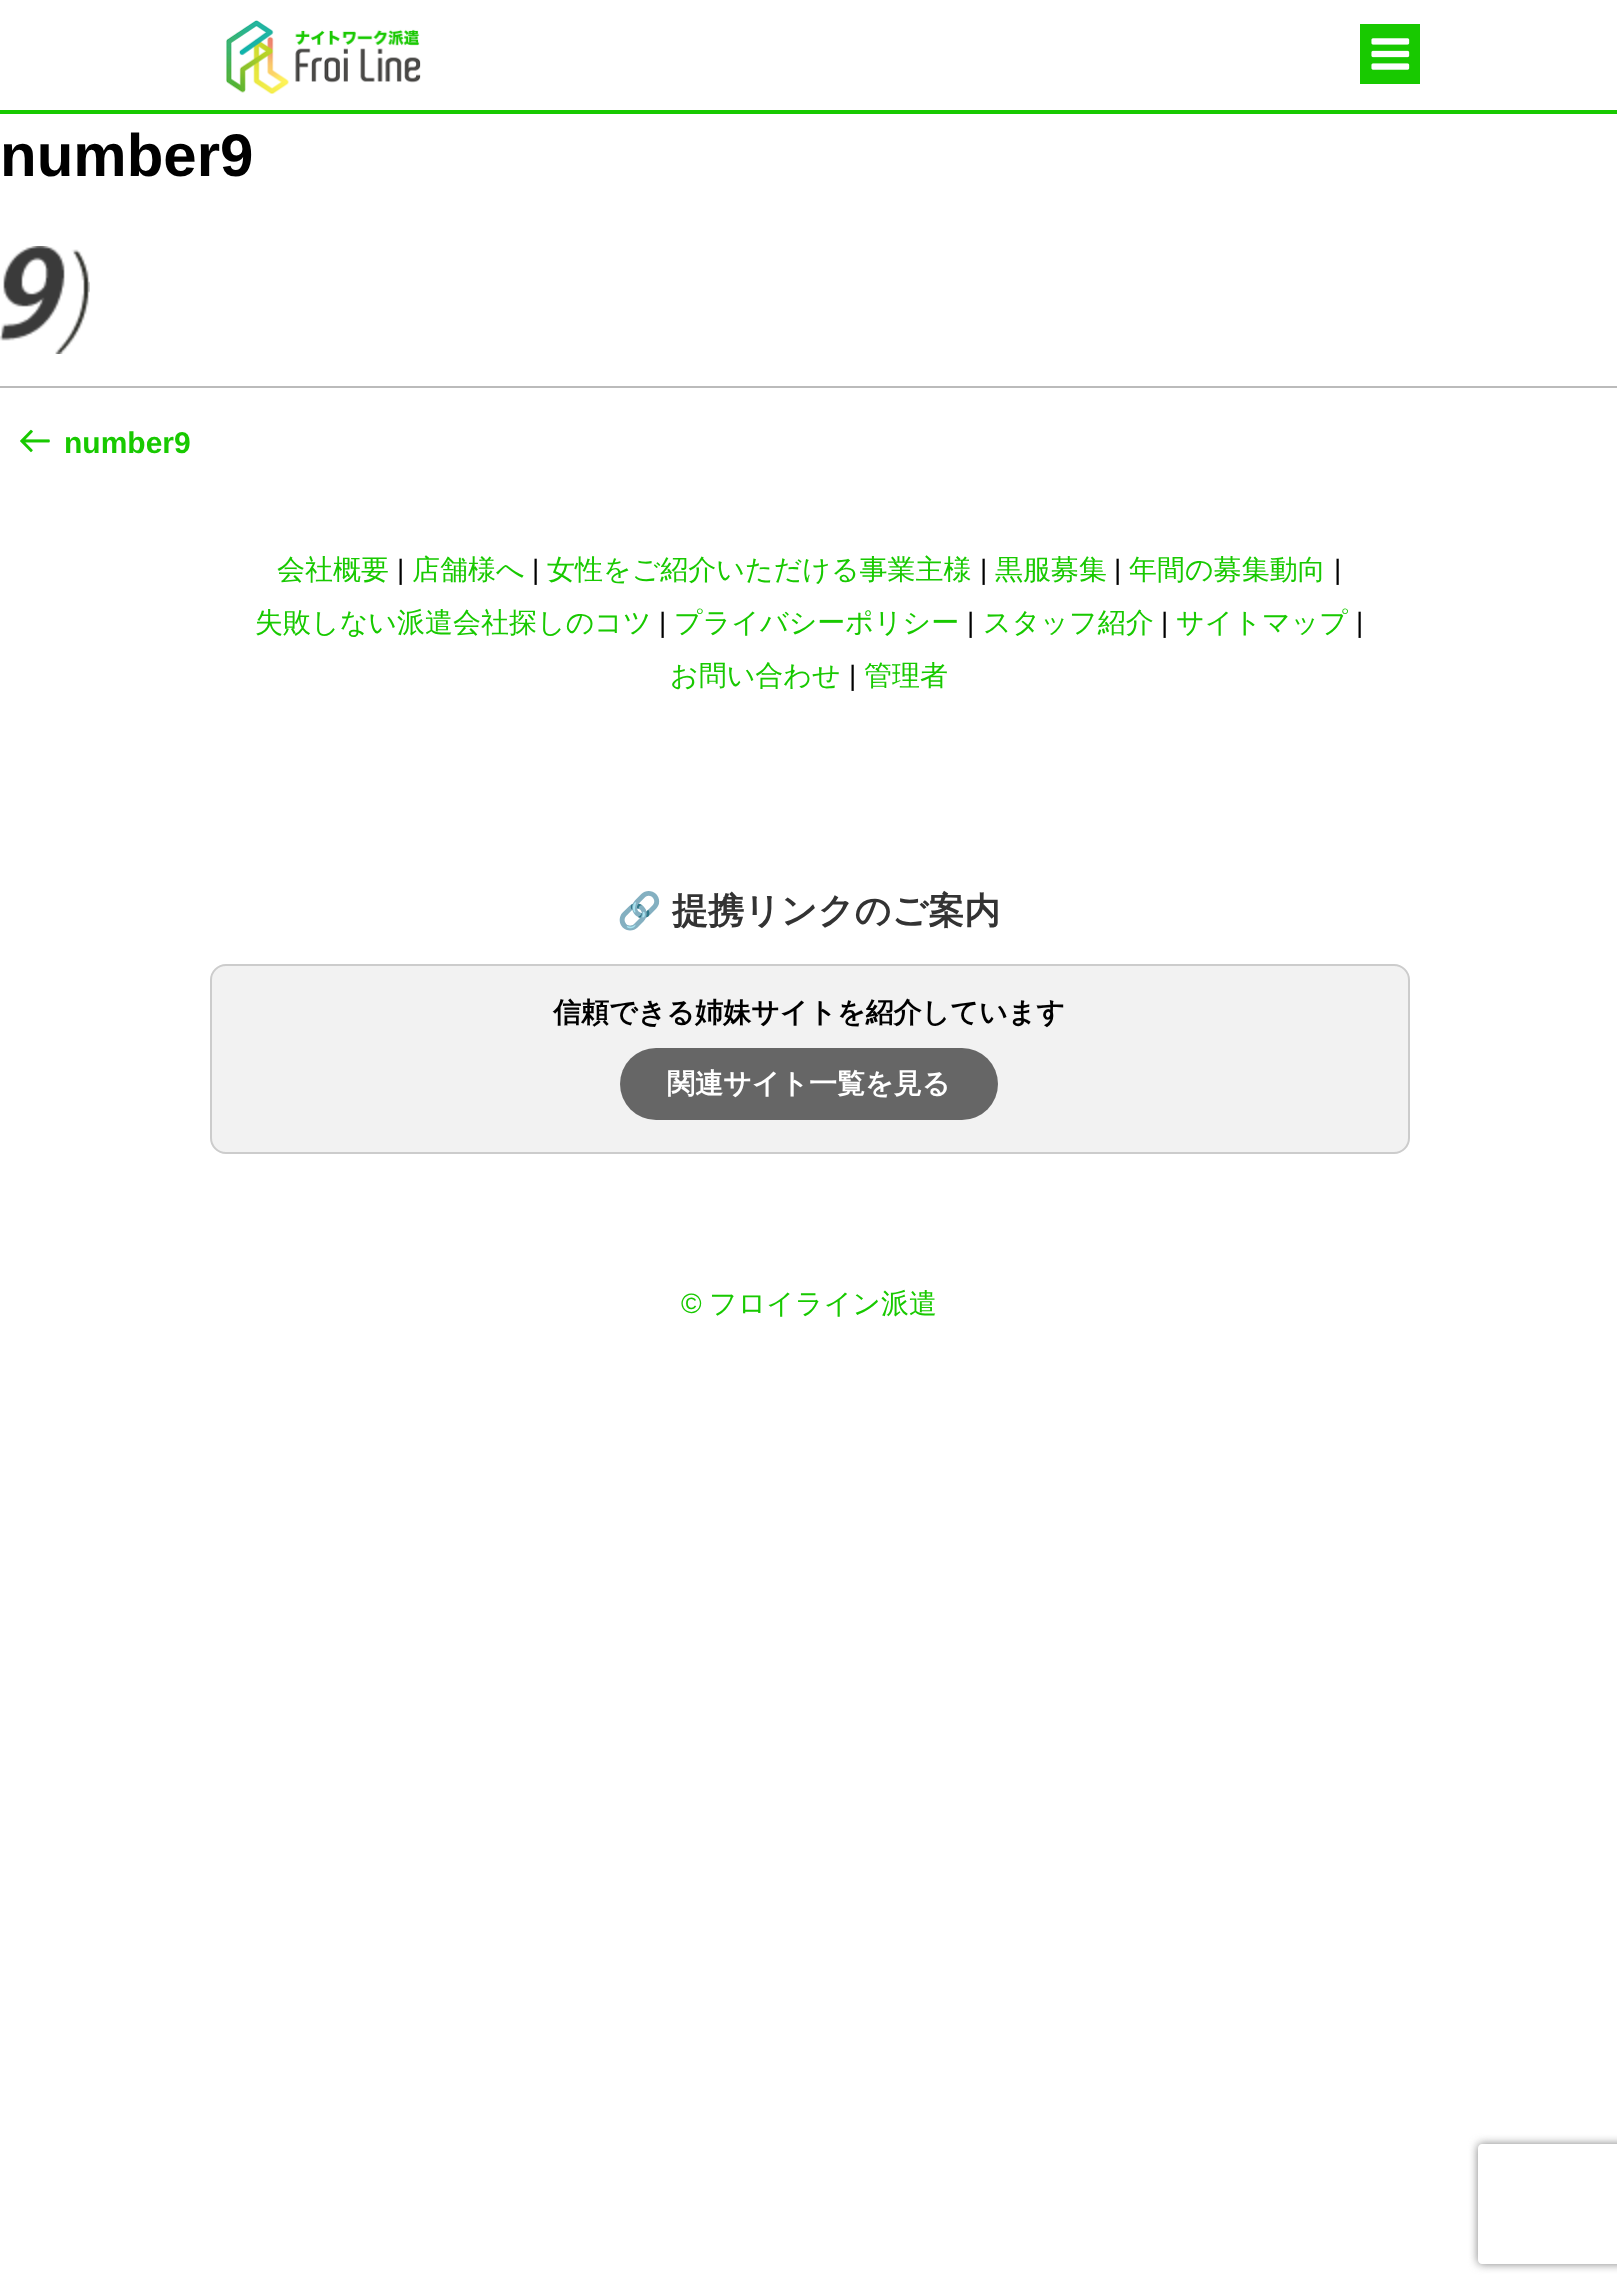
<?xml version="1.0" encoding="UTF-8"?>
<svg xmlns="http://www.w3.org/2000/svg" xmlns:xlink="http://www.w3.org/1999/xlink" width="1617" height="2291">
  <defs>
    <clipPath id="clip1"><path d="M 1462 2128 h 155 v 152 h -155 z m 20 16 h 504 c 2 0 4 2 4 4 v 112 c 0 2 -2 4 -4 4 h -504 c -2 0 -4 -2 -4 -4 v -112 c 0 -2 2 -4 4 -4 z" clip-rule="evenodd" /></clipPath>
  </defs>
  <rect width="100%" height="100%" fill="#ffffff" />
  <rect y="110" width="1617" height="4" fill="#18c900" />
  <image x="226" y="20" width="195" height="74" xlink:href="image1.png" />
  <rect x="1360" y="24" width="60" height="60" fill="#18c900" />
  <image x="1371" y="38" width="39" height="32" xlink:href="image2.png" />
  <image x="0" y="246" width="90" height="108" xlink:href="image3.png" />
  <rect y="386" width="1617" height="2" fill="#bbbbbb" />
  <image x="20" y="429" width="30" height="24" xlink:href="image4.png" />
  <rect x="211" y="965" width="1198" height="188" rx="15" fill="#f2f2f2" stroke="#cccccc" stroke-width="2" />
  <rect x="620" y="1048" width="378" height="72" rx="36" fill="#666666" />
  <g clip-path="url(#clip1)">
    <rect x="1478" y="2144" width="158" height="120" rx="4" fill="#808080" filter="blur(5px)" />
  </g>
  <text x="0" y="176" style="font-family: Liberation Sans; font-size: 60px; font-weight: bold; fill: #000000">number9</text>
  <text x="64" y="453" style="font-family: Liberation Sans; font-size: 30px; font-weight: bold; fill: #18c900">number9</text>
  <text x="277" y="579" style="font-family: WenQuanYi Zen Hei; font-size: 28px; font-weight: 500; fill: #18c900">会社概要</text>
  <text x="397" y="579" style="font-family: Liberation Sans; font-size: 28px; fill: #000000">|</text>
  <text x="412" y="579" style="font-family: WenQuanYi Zen Hei; font-size: 28px; font-weight: 500; fill: #18c900">店舗様へ</text>
  <text x="532" y="579" style="font-family: Liberation Sans; font-size: 28px; fill: #000000">|</text>
  <text x="547" y="579" style="font-family: WenQuanYi Zen Hei; font-size: 28px; font-weight: 500; fill: #18c900">女性をご紹介いただける事業主様</text>
  <text x="980" y="579" style="font-family: Liberation Sans; font-size: 28px; fill: #000000">|</text>
  <text x="995" y="579" style="font-family: WenQuanYi Zen Hei; font-size: 28px; font-weight: 500; fill: #18c900">黒服募集</text>
  <text x="1114" y="579" style="font-family: Liberation Sans; font-size: 28px; fill: #000000">|</text>
  <text x="1129" y="579" style="font-family: WenQuanYi Zen Hei; font-size: 28px; font-weight: 500; fill: #18c900">年間の募集動向</text>
  <text x="1334" y="579" style="font-family: Liberation Sans; font-size: 28px; fill: #000000">|</text>
  <text x="255" y="632" style="font-family: WenQuanYi Zen Hei; font-size: 28px; font-weight: 500; fill: #18c900">失敗しない派遣会社探しのコツ</text>
  <text x="659" y="632" style="font-family: Liberation Sans; font-size: 28px; fill: #000000">|</text>
  <text x="674" y="632" style="font-family: WenQuanYi Zen Hei; font-size: 28px; font-weight: 500; fill: #18c900">プライバシーポリシー</text>
  <text x="967" y="632" style="font-family: Liberation Sans; font-size: 28px; fill: #000000">|</text>
  <text x="983" y="632" style="font-family: WenQuanYi Zen Hei; font-size: 28px; font-weight: 500; fill: #18c900">スタッフ紹介</text>
  <text x="1161" y="632" style="font-family: Liberation Sans; font-size: 28px; fill: #000000">|</text>
  <text x="1176" y="632" style="font-family: WenQuanYi Zen Hei; font-size: 28px; font-weight: 500; fill: #18c900">サイトマップ</text>
  <text x="1356" y="632" style="font-family: Liberation Sans; font-size: 28px; fill: #000000">|</text>
  <text x="670" y="685" style="font-family: WenQuanYi Zen Hei; font-size: 28px; font-weight: 500; fill: #18c900">お問い合わせ</text>
  <text x="849" y="685" style="font-family: Liberation Sans; font-size: 28px; fill: #000000">|</text>
  <text x="864" y="685" style="font-family: WenQuanYi Zen Hei; font-size: 28px; font-weight: 500; fill: #18c900">管理者</text>
  <text x="617" y="923" style="font-family: Noto Color Emoji; font-size: 36px; font-weight: bold; fill: #333333">🔗</text>
  <text x="672" y="923" style="font-family: WenQuanYi Zen Hei; font-size: 36px; font-weight: bold; fill: #333333">提携リンクのご案内</text>
  <text x="553" y="1022" style="font-family: WenQuanYi Zen Hei; font-size: 28px; font-weight: bold; fill: #000000">信頼できる姉妹サイトを紹介しています</text>
  <text x="667" y="1093" style="font-family: WenQuanYi Zen Hei; font-size: 28px; font-weight: bold; fill: #ffffff">関連サイト一覧を見る</text>
  <text x="681" y="1313" style="font-family: Liberation Sans; font-size: 28px; fill: #18c900">©</text>
  <text x="709" y="1313" style="font-family: WenQuanYi Zen Hei; font-size: 28px; font-weight: 500; fill: #18c900">フロイライン派遣</text>
</svg>
